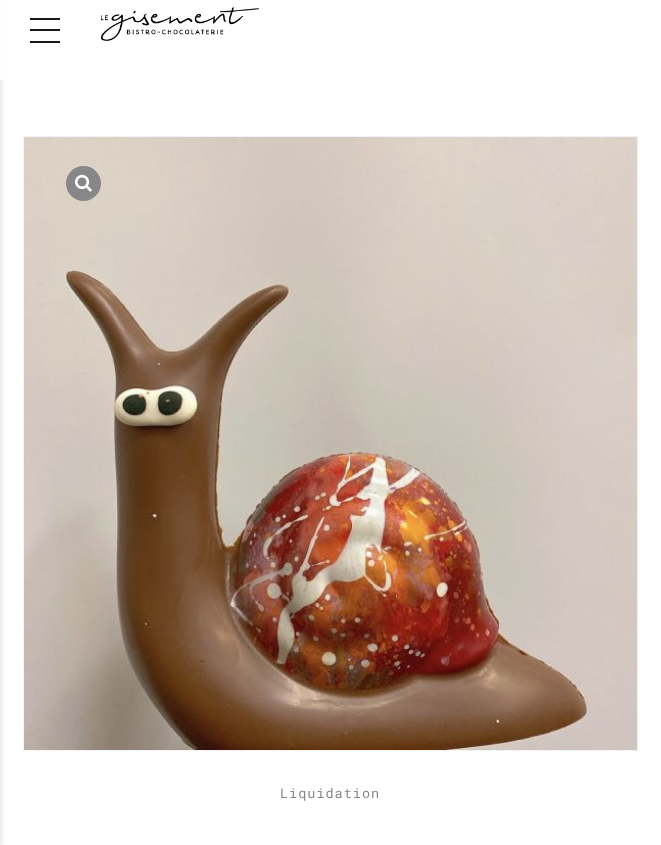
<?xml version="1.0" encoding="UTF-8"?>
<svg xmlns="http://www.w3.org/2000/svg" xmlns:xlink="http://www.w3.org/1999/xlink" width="661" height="845">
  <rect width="100%" height="100%" fill="#ffffff" />
  <rect x="-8" width="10" height="845" fill="#000000" fill-opacity="0.1" filter="blur(2.5px)" />
  <rect width="5" height="80" fill="#ffffff" />
  <rect x="30" y="18" width="30" height="2" fill="#181818" />
  <rect x="30" y="29" width="30" height="2" fill="#181818" />
  <rect x="30" y="41" width="30" height="2" fill="#181818" />
  <image x="101" y="7" width="158" height="34" xlink:href="image1.png" />
  <rect x="23.5" y="136.5" width="614" height="614" fill="none" stroke="#f2f2f2" />
  <image x="24" y="137" width="613" height="613" xlink:href="image2.png" />
  <circle cx="83.5" cy="183.5" r="17.5" fill="#878787" />
  <image x="75" y="174" width="17" height="18" xlink:href="image3.png" />
  <text x="280" y="798" style="font-family: Roboto Mono; font-size: 13.5px; letter-spacing: 1px; fill: #878787">Liquidation</text>
</svg>
